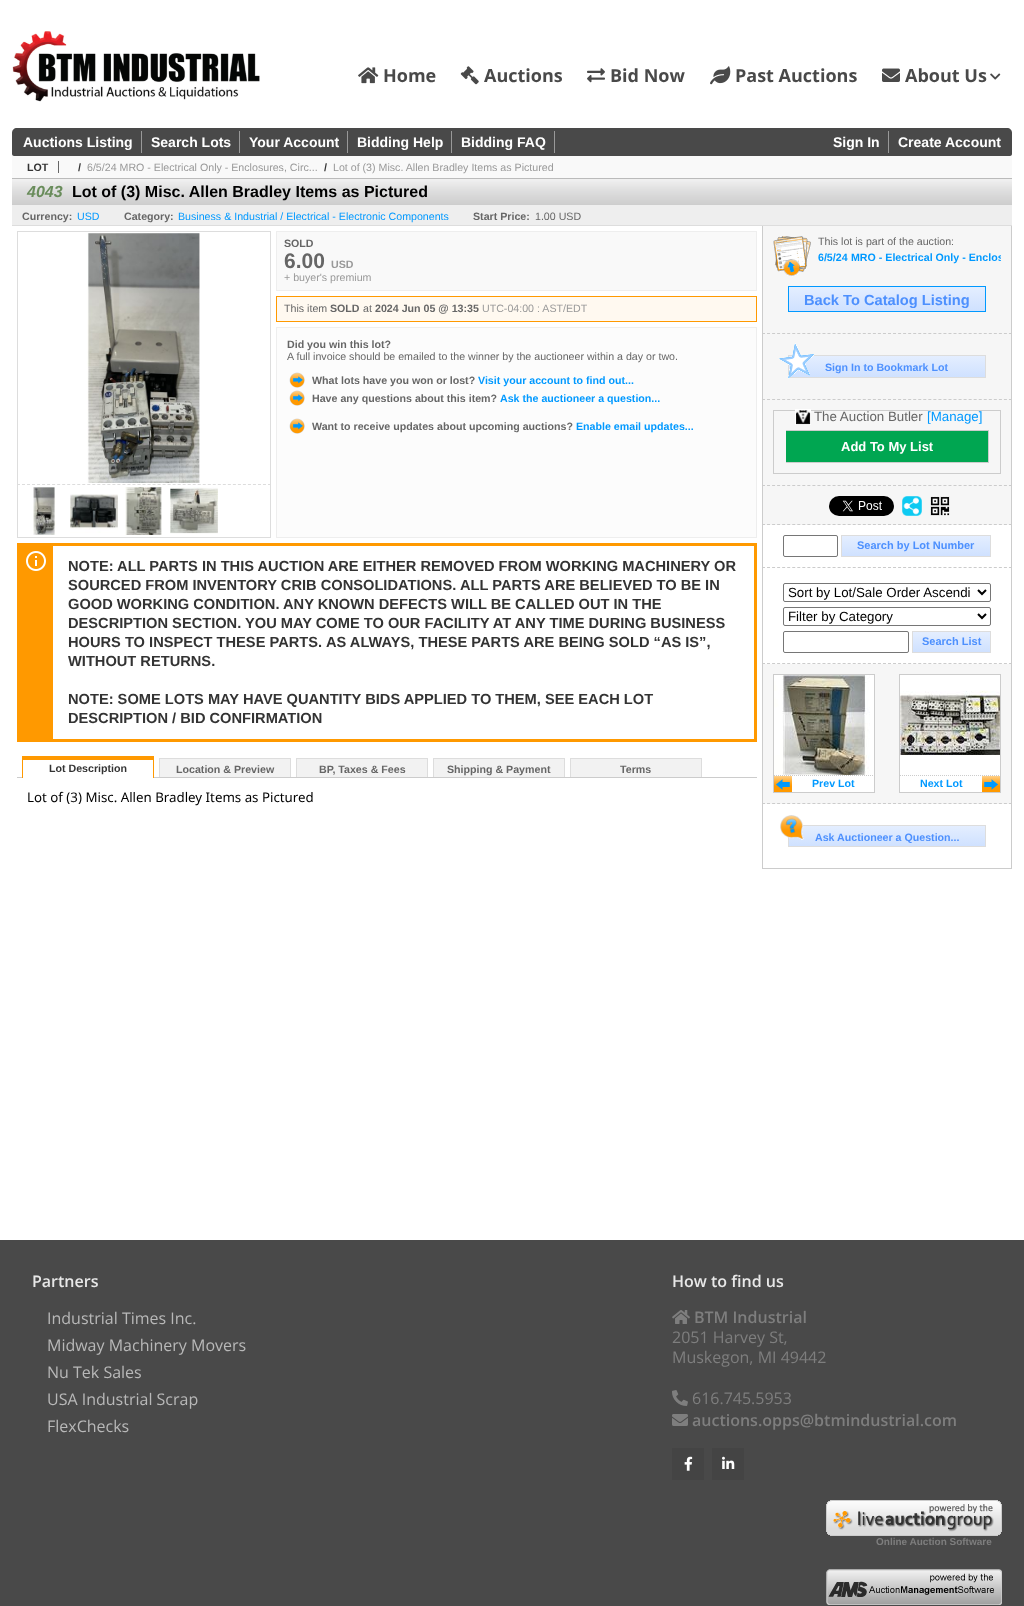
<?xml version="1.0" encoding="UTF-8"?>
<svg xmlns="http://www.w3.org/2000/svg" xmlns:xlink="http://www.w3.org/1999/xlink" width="1024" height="1606">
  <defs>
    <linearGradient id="g1" gradientUnits="userSpaceOnUse" x1="887" y1="287" x2="887" y2="311"><stop offset="0" stop-color="#e4eeff" /><stop offset="1" stop-color="#cfe1ff" /></linearGradient>
    <linearGradient id="g2" gradientUnits="userSpaceOnUse" x1="887" y1="356" x2="887" y2="377"><stop offset="0" stop-color="#e4eeff" /><stop offset="1" stop-color="#cfe1ff" /></linearGradient>
    <linearGradient id="g3" gradientUnits="userSpaceOnUse" x1="916" y1="536" x2="916" y2="556"><stop offset="0" stop-color="#e4eeff" /><stop offset="1" stop-color="#cfe1ff" /></linearGradient>
    <linearGradient id="g4" gradientUnits="userSpaceOnUse" x1="952" y1="632" x2="952" y2="652"><stop offset="0" stop-color="#e4eeff" /><stop offset="1" stop-color="#cfe1ff" /></linearGradient>
    <linearGradient id="g5" gradientUnits="userSpaceOnUse" x1="887" y1="826" x2="887" y2="846"><stop offset="0" stop-color="#e4eeff" /><stop offset="1" stop-color="#cfe1ff" /></linearGradient>
    <clipPath id="clip1"><rect x="818" y="252" width="183" height="12" /></clipPath>
  </defs>
  <rect width="100%" height="100%" fill="#ffffff" />
  <image x="12" y="31" width="248" height="71" xlink:href="image1.png" />
  <image x="358" y="67" width="21" height="17" xlink:href="image2.png" />
  <image x="460" y="66" width="19" height="19" xlink:href="image3.png" />
  <image x="587" y="68" width="18" height="15" xlink:href="image4.png" />
  <image x="710" y="66" width="21" height="19" xlink:href="image5.png" />
  <image x="882" y="68" width="18" height="14" xlink:href="image6.png" />
  <image x="990" y="73" width="11" height="7" xlink:href="image7.png" />
  <path d="M 17 128 h 990 c 3 0 5 2 5 5 v 21 c 0 1 -1 2 -2 2 h -996 c -1 0 -2 -1 -2 -2 v -21 c 0 -3 2 -5 5 -5 z" fill="#494949" />
  <rect x="141" y="131" width="1" height="22" fill="#999999" />
  <rect x="239" y="131" width="1" height="22" fill="#999999" />
  <rect x="347" y="131" width="1" height="22" fill="#999999" />
  <rect x="451" y="131" width="1" height="22" fill="#999999" />
  <rect x="554" y="131" width="1" height="22" fill="#999999" />
  <rect x="888" y="131" width="1" height="22" fill="#999999" />
  <rect x="12" y="156" width="1000" height="22" fill="#f9f9f9" />
  <rect x="12" y="178" width="1000" height="1" fill="#bbbbbb" />
  <rect x="58" y="161" width="1" height="12" fill="#666666" />
  <image x="12" y="179" width="1000" height="26" xlink:href="image8.png" />
  <rect x="12" y="205" width="1000" height="20" fill="#eeeeee" />
  <rect x="12" y="225" width="1000" height="1" fill="#dddddd" />
  <rect x="17" y="231" width="254" height="1" fill="#dddddd" />
  <rect x="270" y="231" width="1" height="253" fill="#dddddd" />
  <rect x="17" y="231" width="1" height="253" fill="#dddddd" />
  <image x="87" y="233" width="113" height="250" xlink:href="image9.png" />
  <path d="M 17 484.5 h 254" fill="none" stroke="#dddddd" stroke-dasharray="3 2.02" />
  <rect x="270" y="484" width="1" height="54" fill="#dddddd" />
  <rect x="17" y="537" width="254" height="1" fill="#dddddd" />
  <rect x="17" y="484" width="1" height="54" fill="#dddddd" />
  <image x="33" y="487" width="23" height="48" xlink:href="image10.png" />
  <image x="70" y="494" width="48" height="39" xlink:href="image11.png" />
  <image x="125" y="487" width="37" height="48" xlink:href="image12.png" />
  <image x="170" y="487" width="48" height="47" xlink:href="image13.png" />
  <rect x="276.5" y="231.5" width="480" height="59" fill="#f9f9f9" stroke="#eeeeee" />
  <rect x="276.5" y="296.5" width="480" height="25" fill="#fff9f0" stroke="#ff9900" />
  <rect x="276.5" y="327.5" width="480" height="210" fill="#fcfcfc" stroke="#eeeeee" />
  <image x="289" y="372" width="16" height="16" xlink:href="image14.png" />
  <image x="289" y="390" width="16" height="16" xlink:href="image14.png" />
  <image x="289" y="418" width="16" height="16" xlink:href="image14.png" />
  <rect x="53" y="543" width="704" height="3" fill="#ff9900" />
  <rect x="754" y="543" width="3" height="199" fill="#ff9900" />
  <rect x="53" y="739" width="704" height="3" fill="#ff9900" />
  <rect x="17" y="543" width="36" height="199" fill="#ff9900" />
  <image x="26" y="551" width="20" height="20" xlink:href="image15.png" />
  <rect x="17" y="777" width="740" height="1" fill="#cccccc" />
  <rect x="23" y="777" width="130" height="1" fill="#ffffff" />
  <rect x="22" y="756" width="132" height="4" fill="#ff9900" />
  <rect x="153" y="756" width="1" height="22" fill="#ff9900" />
  <rect x="22" y="756" width="1" height="22" fill="#ff9900" />
  <rect x="160" y="759" width="130" height="18" fill="#f2f2f2" />
  <rect x="159" y="758" width="132" height="1" fill="#dddddd" />
  <rect x="290" y="758" width="1" height="19" fill="#dddddd" />
  <rect x="159" y="758" width="1" height="19" fill="#dddddd" />
  <rect x="297" y="759" width="130" height="18" fill="#f2f2f2" />
  <rect x="296" y="758" width="132" height="1" fill="#dddddd" />
  <rect x="427" y="758" width="1" height="19" fill="#dddddd" />
  <rect x="296" y="758" width="1" height="19" fill="#dddddd" />
  <rect x="434" y="759" width="130" height="18" fill="#f2f2f2" />
  <rect x="433" y="758" width="132" height="1" fill="#dddddd" />
  <rect x="564" y="758" width="1" height="19" fill="#dddddd" />
  <rect x="433" y="758" width="1" height="19" fill="#dddddd" />
  <rect x="571" y="759" width="130" height="18" fill="#f2f2f2" />
  <rect x="570" y="758" width="132" height="1" fill="#dddddd" />
  <rect x="701" y="758" width="1" height="19" fill="#dddddd" />
  <rect x="570" y="758" width="1" height="19" fill="#dddddd" />
  <rect x="763" y="226" width="248" height="299" fill="#f6f6f6" />
  <rect x="1011" y="226" width="1" height="643" fill="#cccccc" />
  <path d="M 762 333.5 h 250" fill="none" stroke="#cccccc" stroke-dasharray="3 2.04" />
  <rect x="762" y="226" width="1" height="108" fill="#cccccc" />
  <image x="773" y="236" width="38" height="41" xlink:href="image16.png" />
  <rect x="789" y="287" width="196" height="24" fill="url(#g1)" />
  <rect x="788.5" y="286.5" width="197" height="25" fill="none" stroke="#0099ff" />
  <path d="M 762 399.5 h 250" fill="none" stroke="#cccccc" stroke-dasharray="3 2.04" />
  <rect x="762" y="334" width="1" height="66" fill="#cccccc" />
  <rect x="789" y="356" width="196" height="21" fill="url(#g2)" />
  <rect x="788.5" y="355.5" width="197" height="22" fill="none" stroke="#dddddd" />
  <image x="779" y="343" width="35" height="36" xlink:href="image17.png" />
  <path d="M 762 485.5 h 250" fill="none" stroke="#cccccc" stroke-dasharray="3 2.04" />
  <rect x="762" y="400" width="1" height="86" fill="#cccccc" />
  <rect x="773.5" y="410.5" width="227" height="63" fill="none" stroke="#cccccc" />
  <image x="795" y="409" width="16" height="16" xlink:href="image18.png" />
  <rect x="786" y="431" width="202" height="31" fill="#00a651" />
  <rect x="786" y="430" width="203" height="1" fill="#cccccc" />
  <rect x="988" y="430" width="1" height="33" fill="#cccccc" />
  <rect x="786" y="462" width="203" height="1" fill="#cccccc" />
  <path d="M 762 524.5 h 250" fill="none" stroke="#cccccc" stroke-dasharray="3 2.04" />
  <rect x="762" y="486" width="1" height="39" fill="#cccccc" />
  <image x="829" y="496" width="65" height="20" xlink:href="image19.png" />
  <image x="902" y="496" width="20" height="20" xlink:href="image20.png" />
  <image x="930" y="496" width="20" height="20" xlink:href="image21.png" />
  <path d="M 762 567.5 h 250" fill="none" stroke="#cccccc" stroke-dasharray="3 2.04" />
  <rect x="762" y="525" width="1" height="43" fill="#cccccc" />
  <rect x="783.5" y="535.5" width="54" height="21" rx="1.5" fill="none" stroke="#767676" />
  <rect x="842" y="536" width="148" height="20" fill="url(#g3)" />
  <rect x="841.5" y="535.5" width="149" height="21" fill="none" stroke="#dddddd" />
  <path d="M 762 663.5 h 250" fill="none" stroke="#cccccc" stroke-dasharray="3 2.04" />
  <rect x="762" y="568" width="1" height="96" fill="#cccccc" />
  <rect x="783.5" y="583.5" width="207" height="18" rx="1.5" fill="none" stroke="#767676" />
  <path d="M 978 590 l 4 4 l 4 -4" fill="none" stroke="#000000" stroke-width="2" />
  <rect x="783.5" y="607.5" width="207" height="18" rx="1.5" fill="none" stroke="#767676" />
  <path d="M 978 614 l 4 4 l 4 -4" fill="none" stroke="#000000" stroke-width="2" />
  <rect x="783.5" y="631.5" width="125" height="21" rx="1.5" fill="none" stroke="#767676" />
  <rect x="913" y="632" width="77" height="20" fill="url(#g4)" />
  <rect x="912.5" y="631.5" width="78" height="21" fill="none" stroke="#dddddd" />
  <rect x="763" y="664" width="248" height="140" fill="#f6f6f6" />
  <path d="M 762 803.5 h 250" fill="none" stroke="#cccccc" stroke-dasharray="3 2.04" />
  <rect x="762" y="664" width="1" height="140" fill="#cccccc" />
  <rect x="773.5" y="674.5" width="101" height="118" fill="none" stroke="#cccccc" />
  <image x="774" y="675" width="100" height="100" xlink:href="image22.png" />
  <rect x="775" y="775" width="99" height="17" fill="#ffffff" />
  <path d="M 774 775.5 h 100" fill="none" stroke="#cccccc" stroke-dasharray="1 1" />
  <image x="774" y="776" width="18" height="16" xlink:href="image23.png" />
  <rect x="899.5" y="674.5" width="101" height="118" fill="none" stroke="#cccccc" />
  <image x="900" y="675" width="100" height="100" xlink:href="image24.png" />
  <rect x="900" y="775" width="100" height="17" fill="#ffffff" />
  <path d="M 900 775.5 h 100" fill="none" stroke="#cccccc" stroke-dasharray="1 1" />
  <image x="982" y="776" width="18" height="16" xlink:href="image25.png" />
  <rect x="762" y="868" width="250" height="1" fill="#cccccc" />
  <rect x="762" y="804" width="1" height="65" fill="#cccccc" />
  <rect x="789" y="826" width="196" height="20" fill="url(#g5)" />
  <rect x="788.5" y="825.5" width="197" height="21" fill="none" stroke="#dddddd" />
  <image x="780" y="815" width="24" height="25" xlink:href="image26.png" />
  <rect y="1240" width="1024" height="366" fill="#494949" />
  <image x="672" y="1310" width="18" height="14" xlink:href="image27.png" />
  <image x="672" y="1390" width="16" height="16" xlink:href="image28.png" />
  <image x="672" y="1414" width="16" height="12" xlink:href="image29.png" />
  <rect x="672" y="1448" width="32" height="32" fill="#444444" />
  <image x="684" y="1456" width="9" height="15" xlink:href="image30.png" />
  <rect x="712" y="1448" width="32" height="32" fill="#444444" />
  <image x="722" y="1456" width="13" height="13" xlink:href="image31.png" />
  <image x="826" y="1500" width="176" height="36" xlink:href="image32.png" />
  <image x="826" y="1569" width="176" height="36" xlink:href="image33.png" />
  <text x="383" y="82" style="font-family: Open Sans; font-size: 18px; font-weight: bold; fill: #494949">Home</text>
  <text x="484" y="82" style="font-family: Open Sans; font-size: 18px; font-weight: bold; fill: #494949">Auctions</text>
  <text x="610" y="82" style="font-family: Open Sans; font-size: 18px; font-weight: bold; fill: #494949">Bid Now</text>
  <text x="735" y="82" style="font-family: Open Sans; font-size: 18px; font-weight: bold; fill: #494949">Past Auctions</text>
  <text x="905" y="82" style="font-family: Open Sans; font-size: 18px; font-weight: bold; fill: #494949">About Us</text>
  <text x="23" y="147" style="font-family: Liberation Sans; font-size: 14px; font-weight: bold; fill: #ffffff">Auctions Listing</text>
  <text x="151" y="147" style="font-family: Liberation Sans; font-size: 14px; font-weight: bold; fill: #ffffff">Search Lots</text>
  <text x="249" y="147" style="font-family: Liberation Sans; font-size: 14px; font-weight: bold; fill: #ffffff">Your Account</text>
  <text x="357" y="147" style="font-family: Liberation Sans; font-size: 14px; font-weight: bold; fill: #ffffff">Bidding Help</text>
  <text x="461" y="147" style="font-family: Liberation Sans; font-size: 14px; font-weight: bold; fill: #ffffff">Bidding FAQ</text>
  <text x="833" y="147" style="font-family: Liberation Sans; font-size: 14px; font-weight: bold; fill: #ffffff">Sign In</text>
  <text x="898" y="147" style="font-family: Liberation Sans; font-size: 14px; font-weight: bold; fill: #ffffff">Create Account</text>
  <text x="27" y="171" style="font-family: Liberation Sans; font-size: 10.65px; font-weight: bold; fill: #333333">LOT</text>
  <text x="78" y="171" style="font-family: Liberation Sans; font-size: 10.65px; font-weight: bold; fill: #333333">/</text>
  <text x="87" y="171" style="font-family: Liberation Sans; font-size: 10.65px; fill: #999999">6/5/24 MRO - Electrical Only - Enclosures, Circ...</text>
  <text x="324" y="171" style="font-family: Liberation Sans; font-size: 10.65px; font-weight: bold; fill: #333333">/</text>
  <text x="333" y="171" style="font-family: Liberation Sans; font-size: 10.65px; fill: #999999">Lot of (3) Misc. Allen Bradley Items as Pictured</text>
  <text x="27" y="197" style="font-family: Liberation Sans; font-size: 16px; font-weight: bold; font-style: italic; fill: #698c5b">4043</text>
  <text x="72" y="197" style="font-family: Liberation Sans; font-size: 16px; font-weight: bold; fill: #000000">Lot of (3) Misc. Allen Bradley Items as Pictured</text>
  <text x="22" y="220" style="font-family: Liberation Sans; font-size: 10.65px; font-weight: bold; fill: #666666">Currency:</text>
  <text x="77" y="220" style="font-family: Liberation Sans; font-size: 10.65px; fill: #0099ff">USD</text>
  <text x="124" y="220" style="font-family: Liberation Sans; font-size: 10.65px; font-weight: bold; fill: #666666">Category:</text>
  <text x="178" y="220" style="font-family: Liberation Sans; font-size: 10.65px; fill: #0099ff">Business &amp; Industrial / Electrical - Electronic Components</text>
  <text x="473" y="220" style="font-family: Liberation Sans; font-size: 10.65px; font-weight: bold; fill: #666666">Start Price:</text>
  <text x="535" y="220" style="font-family: Liberation Sans; font-size: 10.65px; fill: #666666">1.00 USD</text>
  <text x="284" y="247" style="font-family: Liberation Sans; font-size: 10.65px; font-weight: bold; fill: #666666">SOLD</text>
  <text x="284" y="268" style="font-family: Liberation Sans; font-size: 21px; font-weight: bold; fill: #666666">6.00</text>
  <text x="331" y="268" style="font-family: Liberation Sans; font-size: 10.65px; font-weight: bold; fill: #999999">USD</text>
  <text x="284" y="281" style="font-family: Liberation Sans; font-size: 10.65px; fill: #999999">+ buyer's premium</text>
  <text x="284" y="312" style="font-family: Liberation Sans; font-size: 10.65px; fill: #666666">This item</text>
  <text x="330" y="312" style="font-family: Liberation Sans; font-size: 10.65px; font-weight: bold; fill: #666666">SOLD</text>
  <text x="363" y="312" style="font-family: Liberation Sans; font-size: 10.65px; fill: #666666">at</text>
  <text x="375" y="312" style="font-family: Liberation Sans; font-size: 10.65px; font-weight: bold; fill: #666666">2024 Jun 05 @ 13:35</text>
  <text x="482" y="312" style="font-family: Liberation Sans; font-size: 10.65px; fill: #999999">UTC-04:00 : AST/EDT</text>
  <text x="287" y="348" style="font-family: Liberation Sans; font-size: 10.65px; font-weight: bold; fill: #666666">Did you win this lot?</text>
  <text x="287" y="360" style="font-family: Liberation Sans; font-size: 10.65px; fill: #666666">A full invoice should be emailed to the winner by the auctioneer within a day or two.</text>
  <text x="312" y="384" style="font-family: Liberation Sans; font-size: 10.65px; font-weight: bold; fill: #666666">What lots have you won or lost?</text>
  <text x="478" y="384" style="font-family: Liberation Sans; font-size: 10.65px; font-weight: bold; fill: #0099ff">Visit your account to find out...</text>
  <text x="312" y="402" style="font-family: Liberation Sans; font-size: 10.65px; font-weight: bold; fill: #666666">Have any questions about this item?</text>
  <text x="500" y="402" style="font-family: Liberation Sans; font-size: 10.65px; font-weight: bold; fill: #0099ff">Ask the auctioneer a question...</text>
  <text x="312" y="430" style="font-family: Liberation Sans; font-size: 10.65px; font-weight: bold; fill: #666666">Want to receive updates about upcoming auctions?</text>
  <text x="576" y="430" style="font-family: Liberation Sans; font-size: 10.65px; font-weight: bold; fill: #0099ff">Enable email updates...</text>
  <text x="68" y="571" style="font-family: Liberation Sans; font-size: 14.65px; font-weight: bold; fill: #333333">NOTE: ALL PARTS IN THIS AUCTION ARE EITHER REMOVED FROM WORKING MACHINERY OR</text>
  <text x="68" y="590" style="font-family: Liberation Sans; font-size: 14.65px; font-weight: bold; fill: #333333">SOURCED FROM INVENTORY CRIB CONSOLIDATIONS.</text>
  <text x="460" y="590" style="font-family: Liberation Sans; font-size: 14.65px; font-weight: bold; fill: #333333">ALL PARTS ARE BELIEVED TO BE IN</text>
  <text x="68" y="609" style="font-family: Liberation Sans; font-size: 14.65px; font-weight: bold; fill: #333333">GOOD WORKING CONDITION.</text>
  <text x="283" y="609" style="font-family: Liberation Sans; font-size: 14.65px; font-weight: bold; fill: #333333">ANY KNOWN DEFECTS WILL BE CALLED OUT IN THE</text>
  <text x="68" y="628" style="font-family: Liberation Sans; font-size: 14.65px; font-weight: bold; fill: #333333">DESCRIPTION SECTION.</text>
  <text x="245" y="628" style="font-family: Liberation Sans; font-size: 14.65px; font-weight: bold; fill: #333333">YOU MAY COME TO OUR FACILITY AT ANY TIME DURING BUSINESS</text>
  <text x="68" y="647" style="font-family: Liberation Sans; font-size: 14.65px; font-weight: bold; fill: #333333">HOURS TO INSPECT THESE PARTS.</text>
  <text x="326" y="647" style="font-family: Liberation Sans; font-size: 14.65px; font-weight: bold; fill: #333333">AS ALWAYS, THESE PARTS ARE BEING SOLD “AS IS”,</text>
  <text x="68" y="666" style="font-family: Liberation Sans; font-size: 14.65px; font-weight: bold; fill: #333333">WITHOUT RETURNS.</text>
  <text x="68" y="704" style="font-family: Liberation Sans; font-size: 14.65px; font-weight: bold; fill: #333333">NOTE: SOME LOTS MAY HAVE QUANTITY BIDS APPLIED TO THEM, SEE EACH LOT</text>
  <text x="68" y="723" style="font-family: Liberation Sans; font-size: 14.65px; font-weight: bold; fill: #333333">DESCRIPTION / BID CONFIRMATION</text>
  <text x="49" y="772" style="font-family: Liberation Sans; font-size: 10.65px; font-weight: bold; fill: #333333">Lot Description</text>
  <text x="176" y="773" style="font-family: Liberation Sans; font-size: 10.65px; font-weight: bold; fill: #666666">Location &amp; Preview</text>
  <text x="319" y="773" style="font-family: Liberation Sans; font-size: 10.65px; font-weight: bold; fill: #666666">BP, Taxes &amp; Fees</text>
  <text x="447" y="773" style="font-family: Liberation Sans; font-size: 10.65px; font-weight: bold; fill: #666666">Shipping &amp; Payment</text>
  <text x="620" y="773" style="font-family: Liberation Sans; font-size: 10.65px; font-weight: bold; fill: #666666">Terms</text>
  <text x="27" y="802" style="font-family: Noto Sans; font-size: 13.3px; fill: #000000">Lot of (3) Misc. Allen Bradley Items as Pictured</text>
  <text x="818" y="245" style="font-family: Liberation Sans; font-size: 10.65px; fill: #666666">This lot is part of the auction:</text>
  <text x="818" y="261" style="font-family: Liberation Sans; font-size: 10.65px; font-weight: bold; fill: #0099ff">6/5/24</text>
  <g clip-path="url(#clip1)">
    <text x="851" y="261" style="font-family: Liberation Sans; font-size: 10.65px; font-weight: bold; fill: #0099ff">MRO - Electrical Only - Enclos</text>
  </g>
  <text x="804" y="305" style="font-family: Liberation Sans; font-size: 14.65px; font-weight: bold; fill: #4d90fe">Back To Catalog Listing</text>
  <text x="825" y="371" style="font-family: Liberation Sans; font-size: 10.65px; font-weight: bold; fill: #4d90fe">Sign In to Bookmark Lot</text>
  <text x="814" y="421" style="font-family: Liberation Sans; font-size: 13.3px; fill: #666666">The Auction Butler</text>
  <text x="927" y="421" style="font-family: Liberation Sans; font-size: 13.3px; fill: #0099ff">[Manage]</text>
  <text x="841" y="451" style="font-family: Liberation Sans; font-size: 13px; font-weight: bold; fill: #ffffff">Add To My List</text>
  <text x="857" y="549" style="font-family: Liberation Sans; font-size: 11px; font-weight: bold; fill: #4d90fe">Search by Lot Number</text>
  <text x="788" y="597" style="font-family: Liberation Sans; font-size: 13.3px; fill: #000000">Sort by Lot/Sale Order Ascendi</text>
  <text x="788" y="621" style="font-family: Liberation Sans; font-size: 13.3px; fill: #000000">Filter by Category</text>
  <text x="922" y="645" style="font-family: Liberation Sans; font-size: 11px; font-weight: bold; fill: #4d90fe">Search List</text>
  <text x="812" y="787" style="font-family: Liberation Sans; font-size: 10.65px; font-weight: bold; fill: #0099ff">Prev Lot</text>
  <text x="920" y="787" style="font-family: Liberation Sans; font-size: 10.65px; font-weight: bold; fill: #0099ff">Next Lot</text>
  <text x="815" y="841" style="font-family: Liberation Sans; font-size: 10.65px; font-weight: bold; fill: #4d90fe">Ask Auctioneer a Question...</text>
  <text x="32" y="1287" style="font-family: Open Sans; font-size: 16px; font-weight: 600; fill: #e8e8e8">Partners</text>
  <text x="47" y="1324" style="font-family: Open Sans; font-size: 16px; fill: #b8b8b8">Industrial Times Inc.</text>
  <text x="47" y="1351" style="font-family: Open Sans; font-size: 16px; fill: #b8b8b8">Midway Machinery Movers</text>
  <text x="47" y="1378" style="font-family: Open Sans; font-size: 16px; fill: #b8b8b8">Nu Tek Sales</text>
  <text x="47" y="1405" style="font-family: Open Sans; font-size: 16px; fill: #b8b8b8">USA Industrial Scrap</text>
  <text x="47" y="1432" style="font-family: Open Sans; font-size: 16px; fill: #b8b8b8">FlexChecks</text>
  <text x="672" y="1287" style="font-family: Open Sans; font-size: 16px; font-weight: 600; fill: #e8e8e8">How to find us</text>
  <text x="694" y="1323" style="font-family: Open Sans; font-size: 16px; font-weight: 600; fill: #7e7e7e">BTM Industrial</text>
  <text x="672" y="1343" style="font-family: Open Sans; font-size: 16px; fill: #7e7e7e">2051 Harvey St,</text>
  <text x="672" y="1363" style="font-family: Open Sans; font-size: 16px; fill: #7e7e7e">Muskegon, MI 49442</text>
  <text x="692" y="1404" style="font-family: Open Sans; font-size: 16px; fill: #7e7e7e">616.745.5953</text>
  <text x="692" y="1426" style="font-family: Open Sans; font-size: 16px; font-weight: 600; fill: #7e7e7e">auctions.opps@btmindustrial.com</text>
  <text x="876" y="1545" style="font-family: Liberation Sans; font-size: 10px; font-weight: bold; fill: #7e7e7e">Online Auction Software</text>
</svg>
